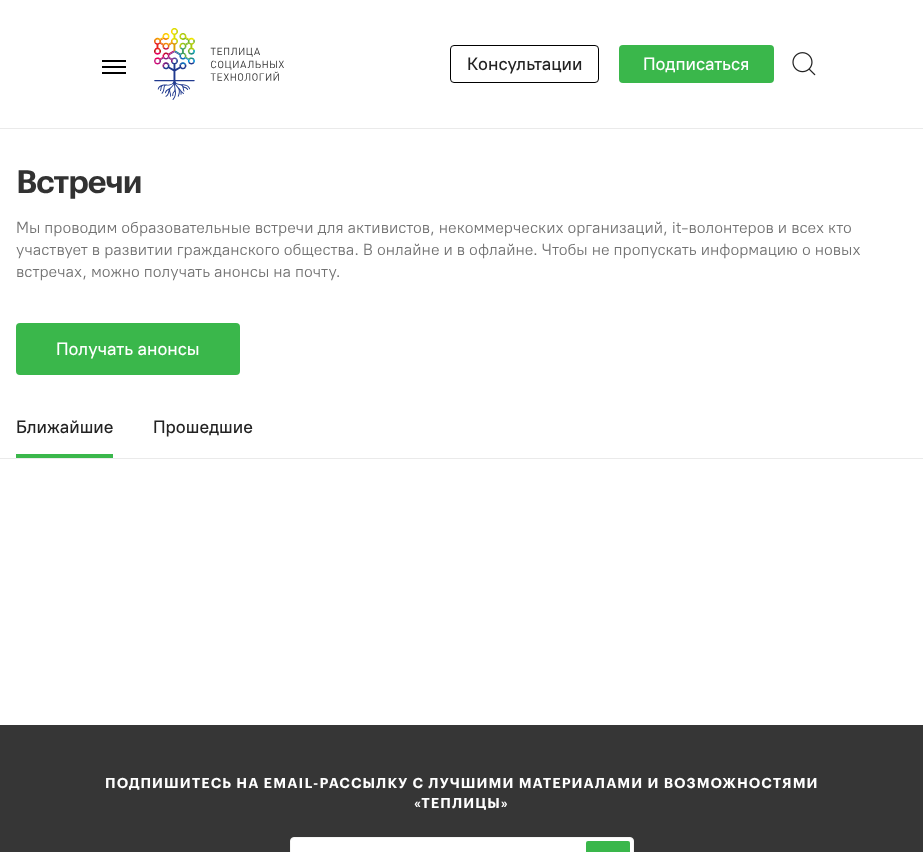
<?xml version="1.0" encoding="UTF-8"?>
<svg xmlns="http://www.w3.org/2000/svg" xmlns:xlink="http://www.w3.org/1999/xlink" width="923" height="852">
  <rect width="100%" height="100%" fill="#ffffff" />
  <rect y="128" width="923" height="1" fill="#eaeaea" />
  <rect x="102" y="66" width="24" height="2" fill="#000000" />
  <rect x="102" y="60" width="24" height="2" fill="#000000" />
  <rect x="102" y="72" width="24" height="2" fill="#000000" />
  <image x="154" y="28" width="130" height="72" xlink:href="image1.png" />
  <rect x="450.5" y="45.5" width="148" height="37" rx="3.5" fill="none" stroke="#000000" />
  <rect x="619" y="45" width="155" height="38" rx="4" fill="#3ab74b" />
  <image x="792" y="52" width="24" height="24" xlink:href="image2.png" />
  <rect y="458" width="923" height="1" fill="#eaeaea" />
  <rect x="16" y="323" width="224" height="52" rx="4" fill="#3ab74b" />
  <rect x="16" y="454" width="97" height="4" fill="#3ab74b" />
  <rect y="725" width="923" height="127" fill="#363636" />
  <rect x="290.5" y="837.5" width="343" height="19" rx="3.5" fill="#ffffff" stroke="#f5f5f4" />
  <rect x="586" y="841" width="44" height="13" rx="2" fill="#3ab74b" />
  <text x="467" y="70" style="font-family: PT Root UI; font-size: 18px; font-weight: 500; fill: #232323">Консультации</text>
  <text x="643" y="70" style="font-family: PT Root UI; font-size: 18px; font-weight: 500; fill: #ffffff">Подписаться</text>
  <text x="16" y="193" style="font-family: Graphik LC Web; font-size: 32px; font-weight: 600; letter-spacing: -1px; fill: #323232">Встречи</text>
  <text x="16" y="233" style="font-family: PT Root UI; font-size: 16px; fill: #717171">Мы проводим образовательные встречи для активистов, некоммерческих организаций, it-волонтеров и всех кто</text>
  <text x="16" y="255" style="font-family: PT Root UI; font-size: 16px; fill: #717171">участвует в развитии гражданского общества. В онлайне и в офлайне. Чтобы не пропускать информацию о новых</text>
  <text x="16" y="277" style="font-family: PT Root UI; font-size: 16px; fill: #717171">встречах, можно получать анонсы на почту.</text>
  <text x="56" y="355" style="font-family: PT Root UI; font-size: 18px; font-weight: 500; fill: #ffffff">Получать анонсы</text>
  <text x="16" y="433" style="font-family: PT Root UI; font-size: 18px; font-weight: 500; fill: #232323">Ближайшие</text>
  <text x="153" y="433" style="font-family: PT Root UI; font-size: 18px; font-weight: 500; fill: #232323">Прошедшие</text>
  <text x="105" y="788" style="font-family: Graphik LC Web; font-size: 14px; font-weight: 600; letter-spacing: 1.12px; fill: #ffffff">ПОДПИШИТЕСЬ НА EMAIL-РАССЫЛКУ С ЛУЧШИМИ МАТЕРИАЛАМИ И ВОЗМОЖНОСТЯМИ</text>
  <text x="414" y="808" style="font-family: Graphik LC Web; font-size: 14px; font-weight: 600; letter-spacing: 1.12px; fill: #ffffff">«ТЕПЛИЦЫ»</text>
</svg>
